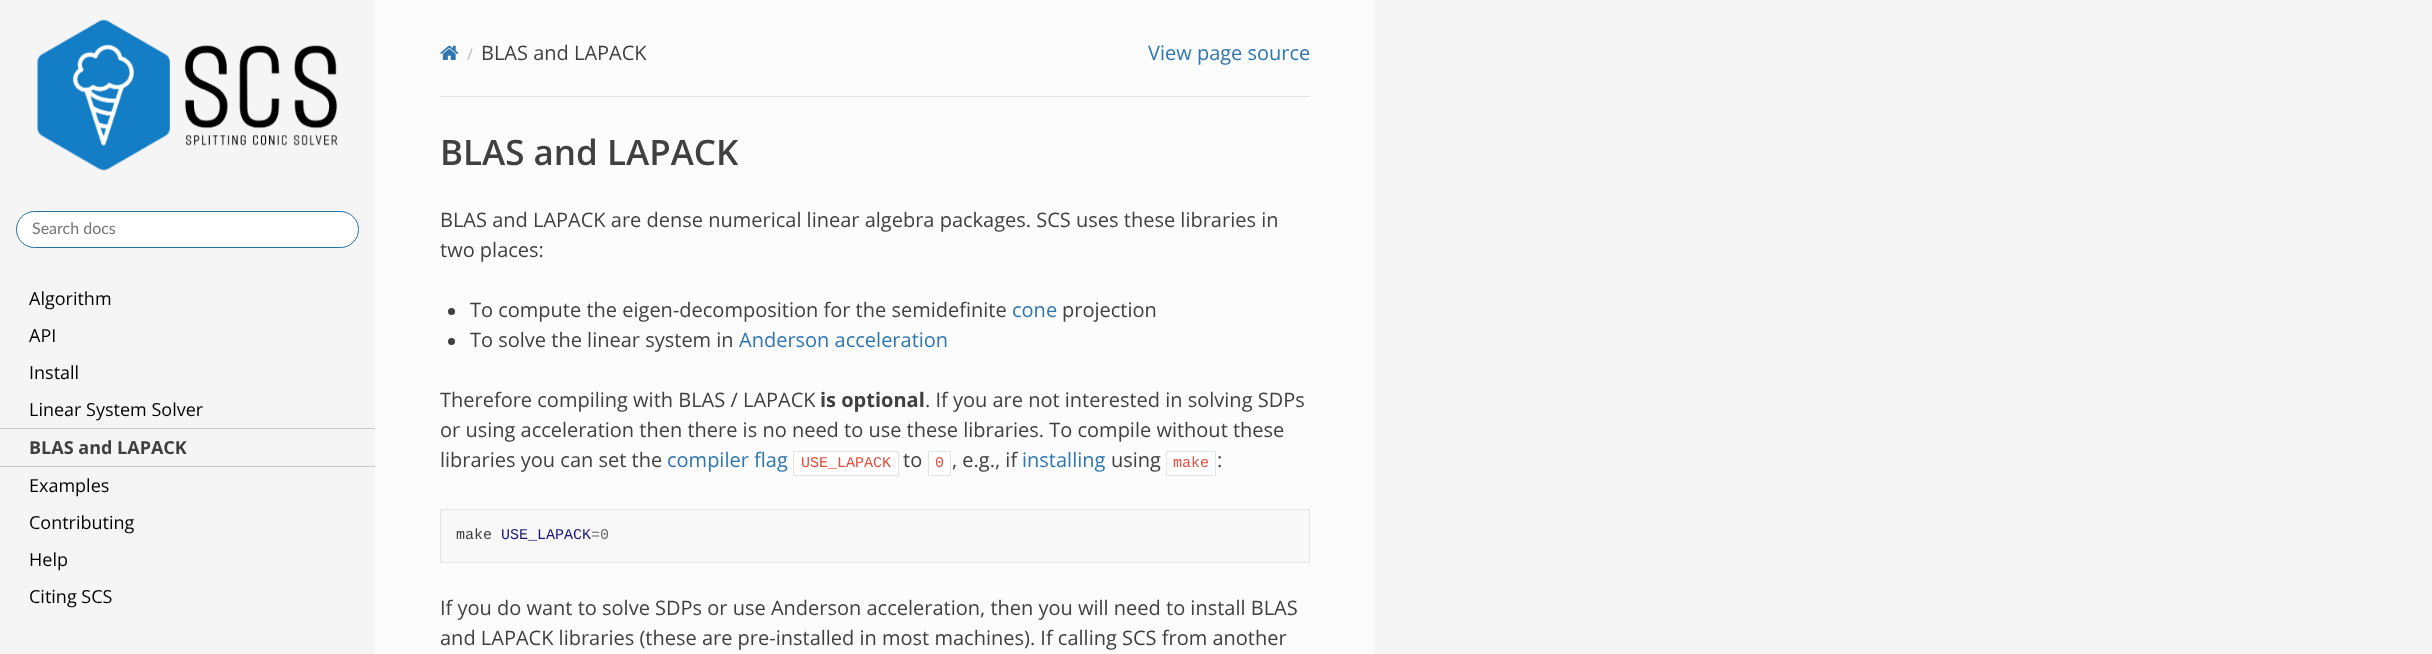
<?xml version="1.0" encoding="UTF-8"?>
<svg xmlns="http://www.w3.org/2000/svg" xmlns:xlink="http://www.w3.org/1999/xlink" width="2432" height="654">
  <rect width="100%" height="100%" fill="#f5f5f5" />
  <image x="36" y="19" width="302" height="152" xlink:href="image1.png" />
  <rect x="16.5" y="211.5" width="342" height="36" rx="18" fill="#ffffff" stroke="#2472a4" />
  <rect y="428" width="375" height="1" fill="#c9c9c9" />
  <rect y="466" width="375" height="1" fill="#c9c9c9" />
  <rect x="375" width="1000" height="654" fill="#fcfcfc" />
  <image x="440" y="45" width="19" height="15" xlink:href="image2.png" />
  <rect x="440" y="96" width="870" height="1" fill="#e1e4e5" />
  <circle cx="451.5" cy="311.5" r="3.5" fill="#404040" />
  <circle cx="451.5" cy="341.5" r="3.5" fill="#404040" />
  <rect x="793.5" y="451.5" width="105" height="24" fill="#ffffff" stroke="#e1e4e5" />
  <rect x="928.5" y="451.5" width="22" height="24" fill="#ffffff" stroke="#e1e4e5" />
  <rect x="1166.5" y="451.5" width="49" height="24" fill="#ffffff" stroke="#e1e4e5" />
  <rect x="440.5" y="509.5" width="869" height="53" fill="none" stroke="#e1e4e5" />
  <rect x="441" y="510" width="868" height="51" fill="#f8f8f8" />
  <text x="32" y="234" style="font-family: Lato; font-size: 16px; fill: #757575">Search docs</text>
  <text x="29" y="305" style="font-family: Open Sans; font-size: 18px; fill: #000000">Algorithm</text>
  <text x="29" y="342" style="font-family: Open Sans; font-size: 18px; fill: #000000">API</text>
  <text x="29" y="379" style="font-family: Open Sans; font-size: 18px; fill: #000000">Install</text>
  <text x="29" y="416" style="font-family: Open Sans; font-size: 18px; fill: #000000">Linear System Solver</text>
  <text x="29" y="454" style="font-family: Open Sans; font-size: 18px; font-weight: bold; fill: #404040">BLAS and LAPACK</text>
  <text x="29" y="492" style="font-family: Open Sans; font-size: 18px; fill: #000000">Examples</text>
  <text x="29" y="529" style="font-family: Open Sans; font-size: 18px; fill: #000000">Contributing</text>
  <text x="29" y="566" style="font-family: Open Sans; font-size: 18px; fill: #000000">Help</text>
  <text x="29" y="603" style="font-family: Open Sans; font-size: 18px; fill: #000000">Citing SCS</text>
  <text x="467" y="60" style="font-family: Open Sans; font-size: 16px; fill: #bbbbbb">/</text>
  <text x="481" y="60" style="font-family: Open Sans; font-size: 20px; fill: #404040">BLAS and LAPACK</text>
  <text x="1148" y="60" style="font-family: Open Sans; font-size: 20px; fill: #2e76b0">View page source</text>
  <text x="440" y="165" style="font-family: Open Sans; font-size: 35px; font-weight: 600; fill: #404040">BLAS and LAPACK</text>
  <text x="440" y="227" style="font-family: Open Sans; font-size: 20px; fill: #404040">BLAS and LAPACK are dense numerical linear algebra packages. SCS uses these libraries in</text>
  <text x="440" y="257" style="font-family: Open Sans; font-size: 20px; fill: #404040">two places:</text>
  <text x="470" y="317" style="font-family: Open Sans; font-size: 20px; fill: #404040">To compute the eigen-decomposition for the semidefinite</text>
  <text x="1012" y="317" style="font-family: Open Sans; font-size: 20px; fill: #2e76b0">cone</text>
  <text x="1062" y="317" style="font-family: Open Sans; font-size: 20px; fill: #404040">projection</text>
  <text x="470" y="347" style="font-family: Open Sans; font-size: 20px; fill: #404040">To solve the linear system in</text>
  <text x="739" y="347" style="font-family: Open Sans; font-size: 20px; fill: #2e76b0">Anderson acceleration</text>
  <text x="440" y="407" style="font-family: Open Sans; font-size: 20px; fill: #404040">Therefore compiling with BLAS / LAPACK</text>
  <text x="820" y="407" style="font-family: Open Sans; font-size: 20px; font-weight: bold; fill: #404040">is optional</text>
  <text x="925" y="407" style="font-family: Open Sans; font-size: 20px; fill: #404040">. If you are not interested in solving SDPs</text>
  <text x="440" y="437" style="font-family: Open Sans; font-size: 20px; fill: #404040">or using acceleration then there is no need to use these libraries. To compile without these</text>
  <text x="440" y="467" style="font-family: Open Sans; font-size: 20px; fill: #404040">libraries you can set the</text>
  <text x="667" y="467" style="font-family: Open Sans; font-size: 20px; fill: #2e76b0">compiler flag</text>
  <text x="801" y="467" style="font-family: Liberation Mono; font-size: 15px; fill: #e74c3c">USE_LAPACK</text>
  <text x="903" y="467" style="font-family: Open Sans; font-size: 20px; fill: #404040">to</text>
  <text x="935" y="467" style="font-family: Liberation Mono; font-size: 15px; fill: #e74c3c">0</text>
  <text x="952" y="467" style="font-family: Open Sans; font-size: 20px; fill: #404040">, e.g., if</text>
  <text x="1022" y="467" style="font-family: Open Sans; font-size: 20px; fill: #2e76b0">installing</text>
  <text x="1111" y="467" style="font-family: Open Sans; font-size: 20px; fill: #404040">using</text>
  <text x="1173" y="467" style="font-family: Liberation Mono; font-size: 15px; fill: #e74c3c">make</text>
  <text x="1217" y="467" style="font-family: Open Sans; font-size: 20px; fill: #404040">:</text>
  <text x="456" y="539" style="font-family: Liberation Mono; font-size: 15px; fill: #404040">make</text>
  <text x="501" y="539" style="font-family: Liberation Mono; font-size: 15px; fill: #19177c">USE_LAPACK</text>
  <text x="591" y="539" style="font-family: Liberation Mono; font-size: 15px; fill: #666666">=0</text>
  <text x="440" y="615" style="font-family: Open Sans; font-size: 20px; fill: #404040">If you do want to solve SDPs or use Anderson acceleration, then you will need to install BLAS</text>
  <text x="440" y="645" style="font-family: Open Sans; font-size: 20px; fill: #404040">and LAPACK libraries (these are pre-installed in most machines). If calling SCS from another</text>
</svg>
